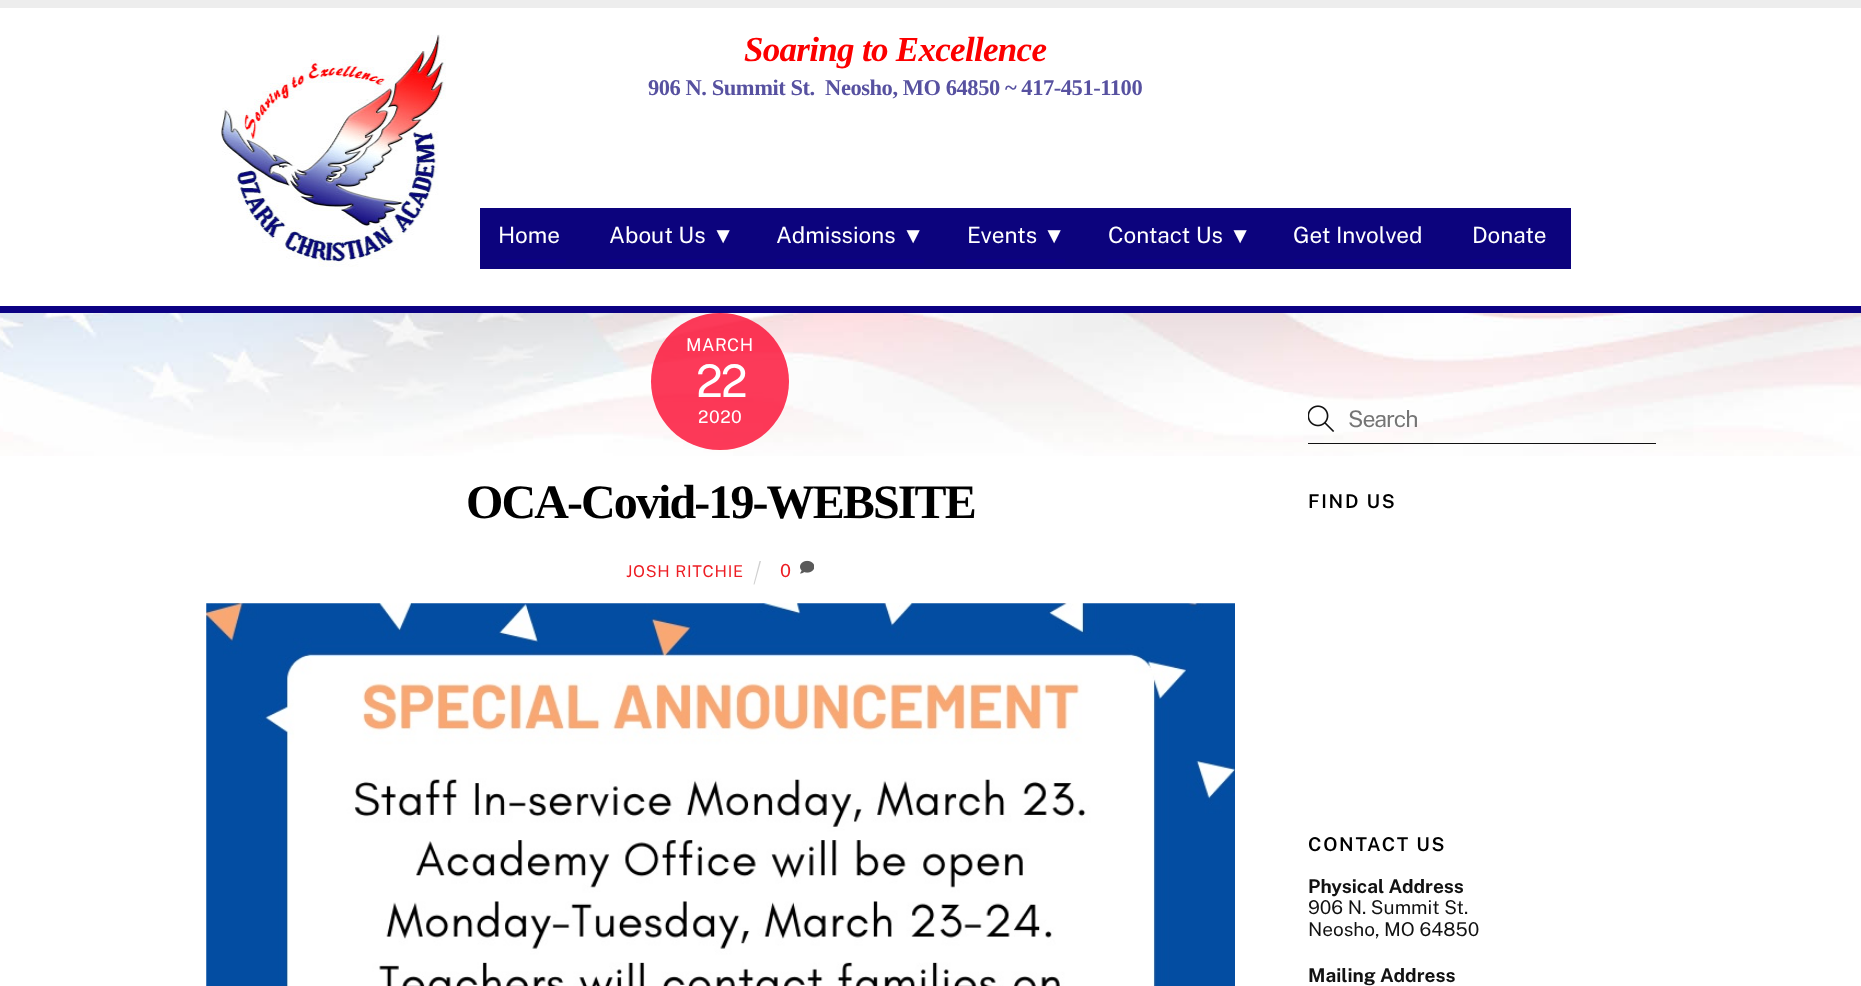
<?xml version="1.0" encoding="UTF-8"?>
<svg xmlns="http://www.w3.org/2000/svg" xmlns:xlink="http://www.w3.org/1999/xlink" width="1861" height="986">
  <rect width="100%" height="100%" fill="#ffffff" />
  <image x="0" y="313" width="1861" height="143" xlink:href="image1.png" />
  <rect y="306" width="1861" height="7" fill="#0c0183" />
  <rect width="1861" height="8" fill="#ededed" />
  <image x="221" y="34" width="225" height="233" xlink:href="image2.png" />
  <rect x="480" y="208" width="1091" height="61" fill="#0c037d" />
  <rect x="499" y="259" width="67" height="4" fill="#0c0183" />
  <rect x="609" y="259" width="125" height="4" fill="#0c0183" />
  <rect x="776" y="259" width="148" height="4" fill="#0c0183" />
  <rect x="966" y="259" width="99" height="4" fill="#0c0183" />
  <rect x="1108" y="259" width="143" height="4" fill="#0c0183" />
  <rect x="1294" y="259" width="135" height="4" fill="#0c0183" />
  <rect x="1471" y="259" width="82" height="4" fill="#0c0183" />
  <rect x="651" y="313" width="138" height="137" rx="68.5" fill="#fb0930" fill-opacity="0.8" />
  <path d="M 759.5 561 h 1.5 l -6.5 23.5 h -1 z" fill="#d0d0d0" />
  <image x="800" y="560" width="14" height="14" xlink:href="image3.png" />
  <image x="206" y="603" width="1029" height="383" xlink:href="image4.png" />
  <rect x="1308" y="443" width="348" height="1" fill="#121212" />
  <image x="1308" y="405" width="27" height="27" xlink:href="image5.png" />
  <text x="744" y="61" style="font-family: Liberation Serif; font-size: 35px; font-weight: bold; font-style: italic; letter-spacing: -0.7px; fill: #fc0000">Soaring to Excellence</text>
  <text x="648" y="95" style="font-family: Liberation Serif; font-size: 22.5px; font-weight: bold; letter-spacing: -0.45px; fill: #5751a0" xml:space="preserve">906 N. Summit St.  Neosho, MO 64850 ~ 417-451-1100</text>
  <text x="498" y="243" style="font-family: Public Sans; font-size: 22.5px; fill: #ffffff">Home</text>
  <text x="609" y="243" style="font-family: Public Sans; font-size: 22.5px; fill: #ffffff">About Us</text>
  <text x="712" y="243" style="font-family: Liberation Sans; font-size: 22.5px; fill: #ffffff">▼</text>
  <text x="776" y="243" style="font-family: Public Sans; font-size: 22.5px; fill: #ffffff">Admissions</text>
  <text x="902" y="243" style="font-family: Liberation Sans; font-size: 22.5px; fill: #ffffff">▼</text>
  <text x="967" y="243" style="font-family: Public Sans; font-size: 22.5px; fill: #ffffff">Events</text>
  <text x="1043" y="243" style="font-family: Liberation Sans; font-size: 22.5px; fill: #ffffff">▼</text>
  <text x="1108" y="243" style="font-family: Public Sans; font-size: 22.5px; fill: #ffffff">Contact Us</text>
  <text x="1229" y="243" style="font-family: Liberation Sans; font-size: 22.5px; fill: #ffffff">▼</text>
  <text x="1293" y="243" style="font-family: Public Sans; font-size: 22.5px; fill: #ffffff">Get Involved</text>
  <text x="1472" y="243" style="font-family: Public Sans; font-size: 22.5px; fill: #ffffff">Donate</text>
  <text x="686" y="351" style="font-family: Public Sans; font-size: 17.5px; letter-spacing: 0.5px; fill: #ffffff">MARCH</text>
  <text x="696" y="397" style="font-family: Public Sans; font-size: 45px; letter-spacing: -2px; fill: #ffffff">22</text>
  <text x="698" y="423" style="font-family: Public Sans; font-size: 17.5px; letter-spacing: 0.5px; fill: #ffffff">2020</text>
  <text x="466" y="518" style="font-family: Liberation Serif; font-size: 48px; font-weight: bold; letter-spacing: -1.9px; fill: #000000">OCA-Covid-19-WEBSITE</text>
  <text x="626" y="577" style="font-family: Public Sans; font-size: 16.25px; letter-spacing: 0.75px; fill: #ed1e24">JOSH RITCHIE</text>
  <text x="780" y="577" style="font-family: Public Sans; font-size: 18px; fill: #ed1e24">0</text>
  <text x="1348" y="427" style="font-family: Public Sans; font-size: 23px; letter-spacing: -1px; fill: #757575">Search</text>
  <text x="1308" y="508" style="font-family: Public Sans; font-size: 19px; font-weight: 600; letter-spacing: 1.75px; fill: #000000">FIND US</text>
  <text x="1308" y="851" style="font-family: Public Sans; font-size: 19px; font-weight: 600; letter-spacing: 1.75px; fill: #000000">CONTACT US</text>
  <text x="1308" y="893" style="font-family: Public Sans; font-size: 19px; font-weight: bold; fill: #121212">Physical Address</text>
  <text x="1308" y="914" style="font-family: Public Sans; font-size: 19px; fill: #121212">906 N. Summit St.</text>
  <text x="1308" y="936" style="font-family: Public Sans; font-size: 19px; fill: #121212">Neosho, MO 64850</text>
  <text x="1308" y="982" style="font-family: Public Sans; font-size: 19px; font-weight: bold; fill: #121212">Mailing Address</text>
</svg>
